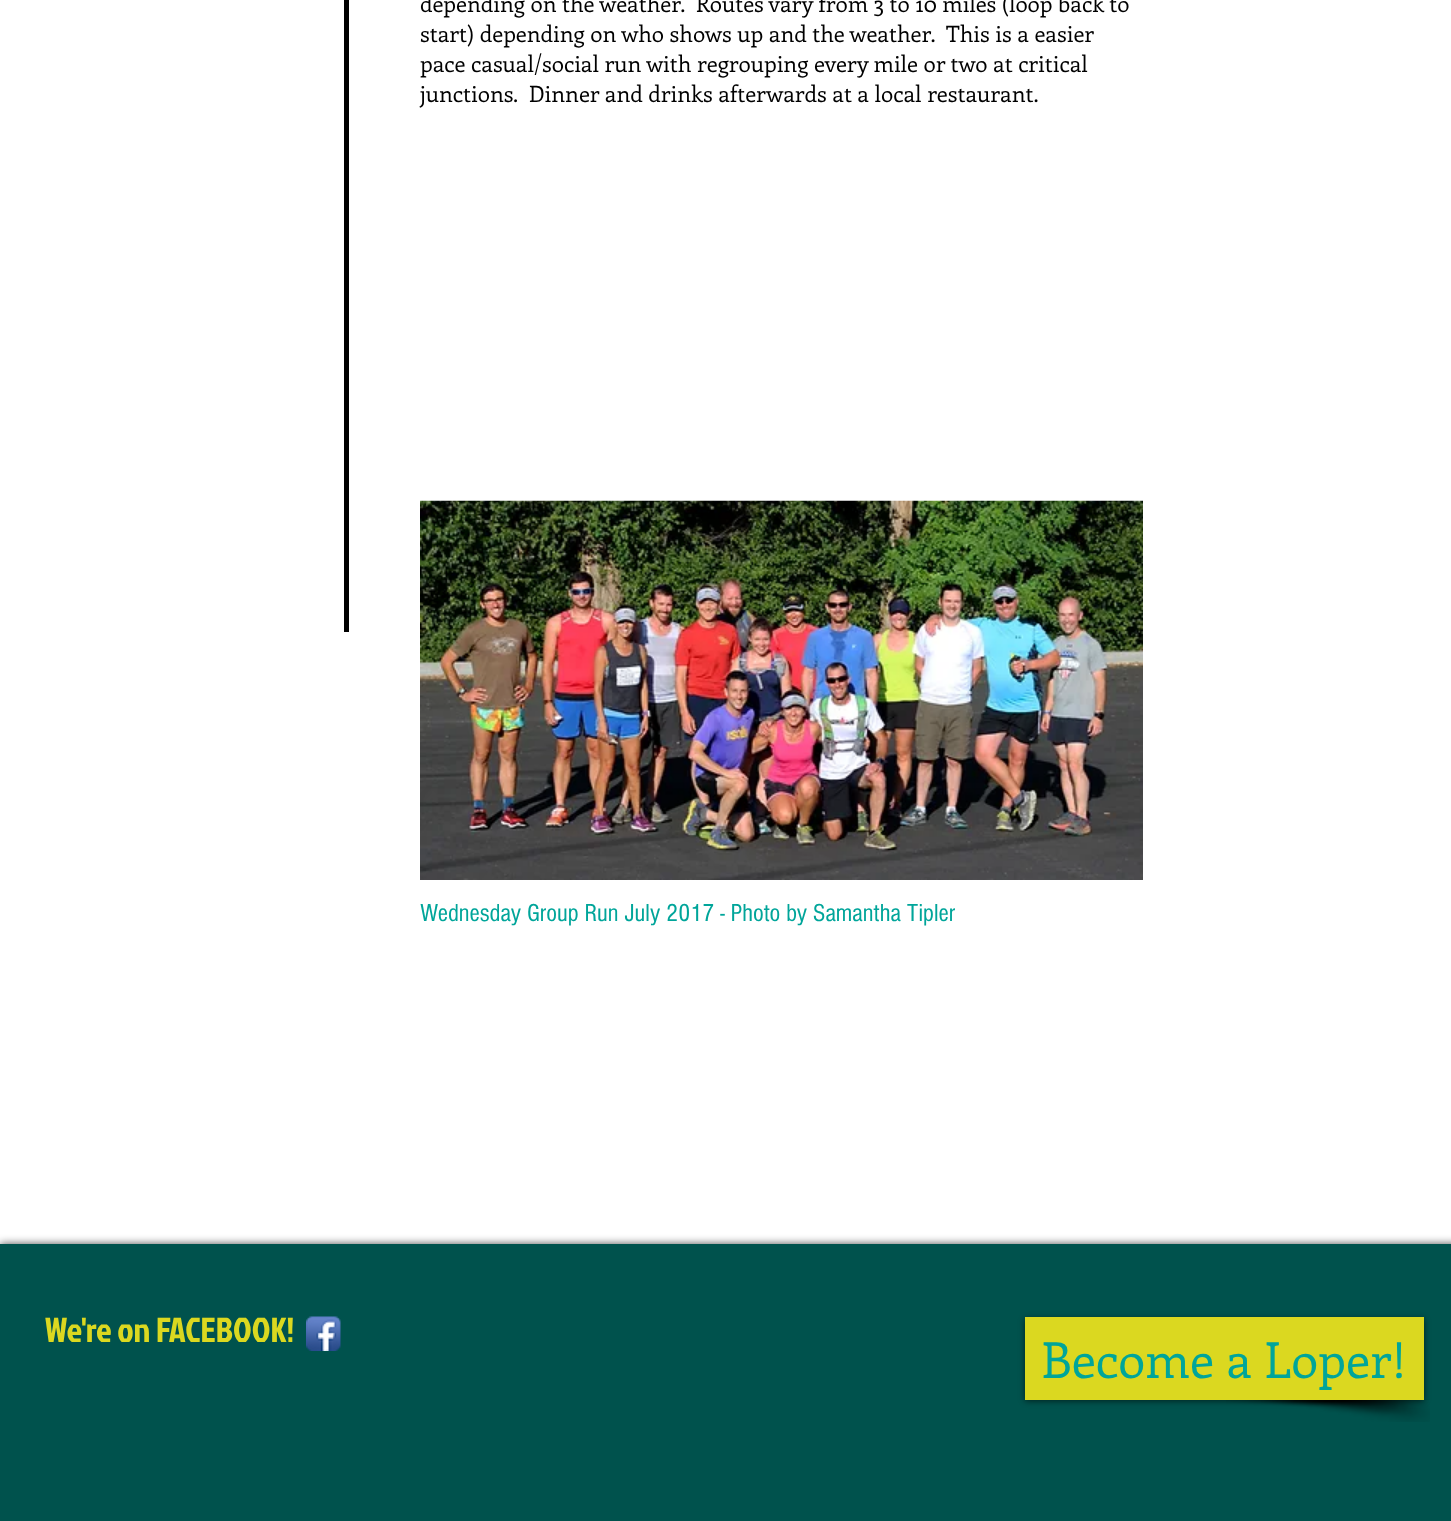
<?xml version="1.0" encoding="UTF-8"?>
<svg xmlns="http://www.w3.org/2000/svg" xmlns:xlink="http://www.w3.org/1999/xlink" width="1451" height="1521">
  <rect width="100%" height="100%" fill="#ffffff" />
  <rect x="344" width="5" height="632" fill="#000000" />
  <image x="420" y="500" width="723" height="380" xlink:href="image1.png" />
  <rect y="1244" width="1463" height="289" fill="#000000" fill-opacity="0.7" filter="blur(4px)" />
  <rect y="1244" width="1451" height="277" fill="#00524d" />
  <image x="306" y="1316" width="35" height="35" xlink:href="image2.png" />
  <image x="1226" y="1399" width="204" height="23" xlink:href="image3.png" />
  <rect x="1025" y="1319" width="399" height="82" fill="#000000" fill-opacity="0.6" filter="blur(3px)" />
  <rect x="1025" y="1317" width="399" height="83" fill="#dbd820" />
  <text x="420" y="12" style="font-family: Enriqueta; font-size: 22.5px; fill: #000000" xml:space="preserve">depending on the weather.  Routes vary from 3 to 10 miles (loop back to</text>
  <text x="420" y="42" style="font-family: Enriqueta; font-size: 22.5px; fill: #000000" xml:space="preserve">start) depending on who shows up and the weather.  This is a easier</text>
  <text x="420" y="72" style="font-family: Enriqueta; font-size: 22.5px; fill: #000000">pace casual/social run with regrouping every mile or two at critical</text>
  <text x="420" y="102" style="font-family: Enriqueta; font-size: 22.5px; fill: #000000" xml:space="preserve">junctions.  Dinner and drinks afterwards at a local restaurant.</text>
  <text x="420" y="921" style="font-family: 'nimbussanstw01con'; font-size: 25.5px; fill: #00a59a">Wednesday Group Run July 2017 - Photo by Samantha Tipler</text>
  <text x="45" y="1342" style="font-family: Jockey One; font-size: 34.5px; fill: #dbd820">We're on FACEBOOK!</text>
  <text x="1041" y="1378" style="font-family: Enriqueta; font-size: 49.5px; fill: #00a59a">Become a Loper!</text>
</svg>
